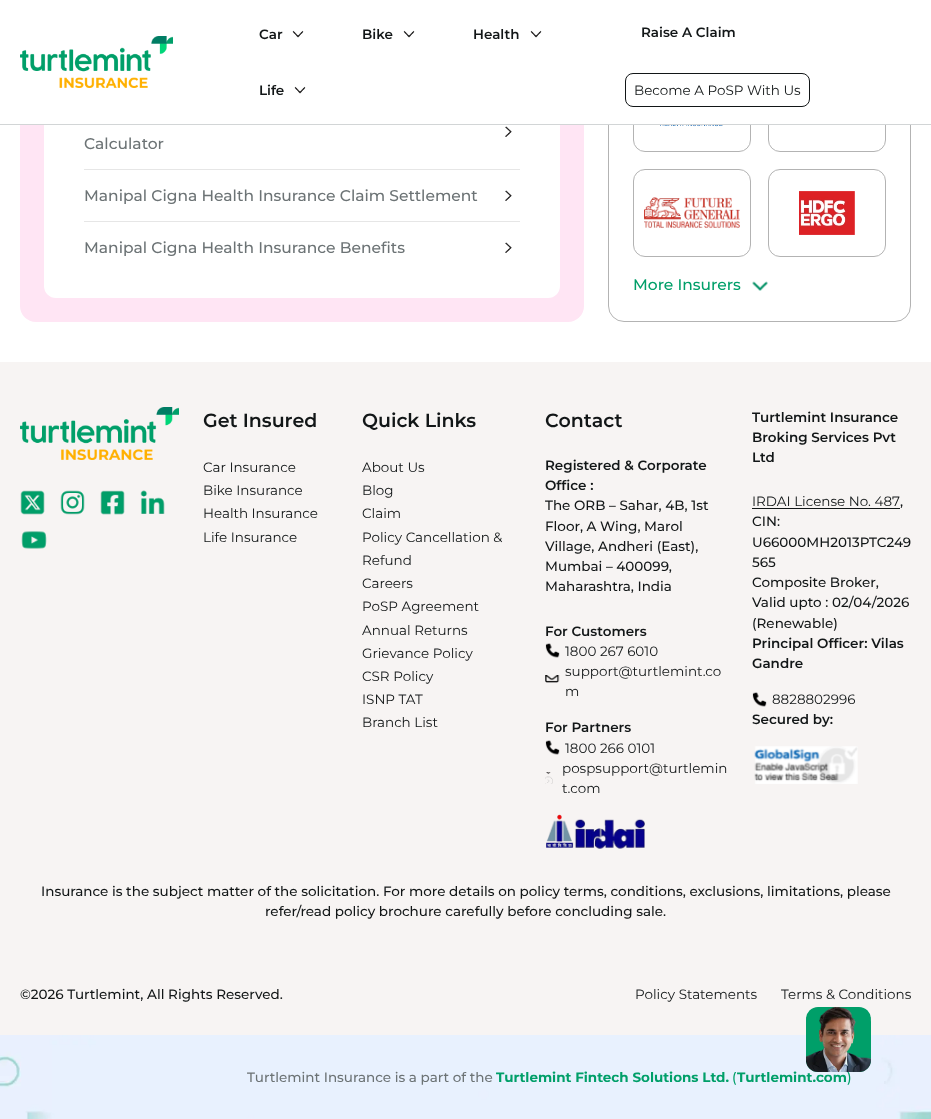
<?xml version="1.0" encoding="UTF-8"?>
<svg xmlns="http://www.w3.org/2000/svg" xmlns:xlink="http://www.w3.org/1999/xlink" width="931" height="1119">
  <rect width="100%" height="100%" fill="#ffffff" />
  <rect x="20" y="-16" width="564" height="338" rx="16" fill="#ffe5f4" />
  <rect x="44" y="-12" width="516" height="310" rx="12" fill="#ffffff" />
  <rect x="608.5" y="-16.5" width="302" height="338" rx="15.5" fill="none" stroke="#b3b3b3" />
  <rect x="633.5" y="64.5" width="117" height="87" rx="11.5" fill="none" stroke="#b3b3b3" />
  <rect x="768.5" y="64.5" width="117" height="87" rx="11.5" fill="none" stroke="#b3b3b3" />
  <rect x="20" width="891" height="124" fill="#ffffff" />
  <rect y="124" width="931" height="1" fill="#d2d5d6" />
  <image x="20" y="36" width="153" height="52" xlink:href="image1.png" />
  <image x="292" y="30" width="12" height="8" xlink:href="image2.png" />
  <image x="403" y="30" width="12" height="8" xlink:href="image2.png" />
  <image x="530" y="30" width="12" height="8" xlink:href="image3.png" />
  <image x="294" y="86" width="12" height="8" xlink:href="image2.png" />
  <rect x="625.5" y="73.5" width="184" height="33" rx="7.5" fill="none" stroke="#121617" />
  <rect x="84" y="169" width="436" height="1" fill="#e6e6e6" />
  <image x="505" y="126" width="7" height="11" xlink:href="image4.png" />
  <rect x="84" y="221" width="436" height="1" fill="#e6e6e6" />
  <image x="505" y="190" width="7" height="11" xlink:href="image4.png" />
  <image x="505" y="242" width="7" height="11" xlink:href="image4.png" />
  <image x="660" y="125" width="63" height="2" xlink:href="image5.png" />
  <rect x="633.5" y="169.5" width="117" height="87" rx="11.5" fill="none" stroke="#b3b3b3" />
  <image x="644" y="197" width="96" height="32" xlink:href="image6.png" />
  <rect x="768.5" y="169.5" width="117" height="87" rx="11.5" fill="none" stroke="#b3b3b3" />
  <image x="799" y="191" width="56" height="44" xlink:href="image7.png" />
  <image x="752" y="281" width="16" height="10" xlink:href="image8.png" />
  <rect y="362" width="931" height="673" fill="#f7f4f3" />
  <image x="20" y="407" width="159" height="53" xlink:href="image9.png" />
  <image x="20" y="490" width="25" height="25" xlink:href="image10.png" />
  <image x="60" y="490" width="25" height="25" xlink:href="image11.png" />
  <image x="100" y="490" width="25" height="25" xlink:href="image12.png" />
  <image x="140" y="490" width="25" height="24" xlink:href="image13.png" />
  <image x="21" y="531" width="26" height="18" xlink:href="image14.png" />
  <image x="545" y="643" width="15" height="15" xlink:href="image15.png" />
  <image x="545" y="675" width="15" height="8" xlink:href="image16.png" />
  <image x="545" y="740" width="15" height="15" xlink:href="image15.png" />
  <image x="545" y="772" width="8" height="12" xlink:href="image17.png" />
  <image x="546" y="814" width="99" height="35" xlink:href="image18.png" />
  <rect x="752" y="508" width="148" height="1" fill="#121617" />
  <image x="752" y="692" width="15" height="15" xlink:href="image15.png" />
  <image x="754" y="746" width="104" height="38" xlink:href="image19.png" />
  <image x="0" y="1035" width="931" height="84" xlink:href="image20.png" />
  <rect x="806" y="1007" width="65" height="65" rx="12" fill="#009f69" />
  <text x="259" y="39" style="font-family: Montserrat; font-size: 13.5px; font-weight: 600; fill: #121617">Car</text>
  <text x="362" y="39" style="font-family: Montserrat; font-size: 13.5px; font-weight: 600; fill: #121617">Bike</text>
  <text x="473" y="39" style="font-family: Montserrat; font-size: 13.5px; font-weight: 600; fill: #121617">Health</text>
  <text x="259" y="95" style="font-family: Montserrat; font-size: 13.5px; font-weight: 600; fill: #121617">Life</text>
  <text x="641" y="37" style="font-family: Montserrat; font-size: 13.5px; font-weight: 600; fill: #121617">Raise A Claim</text>
  <text x="634" y="95" style="font-family: Montserrat; font-size: 13.5px; font-weight: 100; fill: #121617">Become A PoSP With Us</text>
  <text x="84" y="149" style="font-family: Montserrat; font-size: 15.5px; font-weight: 500; fill: #6c7375">Calculator</text>
  <text x="84" y="201" style="font-family: Montserrat; font-size: 15.5px; font-weight: 500; fill: #6c7375">Manipal Cigna Health Insurance Claim Settlement</text>
  <text x="84" y="253" style="font-family: Montserrat; font-size: 15.5px; font-weight: 500; fill: #6c7375">Manipal Cigna Health Insurance Benefits</text>
  <text x="633" y="290" style="font-family: Montserrat; font-size: 15.5px; font-weight: 500; fill: #009f69">More Insurers</text>
  <text x="203" y="427" style="font-family: Montserrat; font-size: 19px; font-weight: 600; fill: #121617">Get Insured</text>
  <text x="203" y="472" style="font-family: Montserrat; font-size: 13.5px; font-weight: 100; fill: #121617">Car Insurance</text>
  <text x="203" y="495" style="font-family: Montserrat; font-size: 13.5px; font-weight: 100; fill: #121617">Bike Insurance</text>
  <text x="203" y="518" style="font-family: Montserrat; font-size: 13.5px; font-weight: 100; fill: #121617">Health Insurance</text>
  <text x="203" y="542" style="font-family: Montserrat; font-size: 13.5px; font-weight: 100; fill: #121617">Life Insurance</text>
  <text x="362" y="427" style="font-family: Montserrat; font-size: 19px; font-weight: 600; fill: #121617">Quick Links</text>
  <text x="362" y="472" style="font-family: Montserrat; font-size: 13.5px; font-weight: 100; fill: #121617">About Us</text>
  <text x="362" y="495" style="font-family: Montserrat; font-size: 13.5px; font-weight: 100; fill: #121617">Blog</text>
  <text x="362" y="518" style="font-family: Montserrat; font-size: 13.5px; font-weight: 100; fill: #121617">Claim</text>
  <text x="362" y="542" style="font-family: Montserrat; font-size: 13.5px; font-weight: 100; fill: #121617">Policy Cancellation &amp;</text>
  <text x="362" y="565" style="font-family: Montserrat; font-size: 13.5px; font-weight: 100; fill: #121617">Refund</text>
  <text x="362" y="588" style="font-family: Montserrat; font-size: 13.5px; font-weight: 100; fill: #121617">Careers</text>
  <text x="362" y="611" style="font-family: Montserrat; font-size: 13.5px; font-weight: 100; fill: #121617">PoSP Agreement</text>
  <text x="362" y="635" style="font-family: Montserrat; font-size: 13.5px; font-weight: 100; fill: #121617">Annual Returns</text>
  <text x="362" y="658" style="font-family: Montserrat; font-size: 13.5px; font-weight: 100; fill: #121617">Grievance Policy</text>
  <text x="362" y="681" style="font-family: Montserrat; font-size: 13.5px; font-weight: 100; fill: #121617">CSR Policy</text>
  <text x="362" y="704" style="font-family: Montserrat; font-size: 13.5px; font-weight: 100; fill: #121617">ISNP TAT</text>
  <text x="362" y="727" style="font-family: Montserrat; font-size: 13.5px; font-weight: 100; fill: #121617">Branch List</text>
  <text x="545" y="427" style="font-family: Montserrat; font-size: 19px; font-weight: 600; fill: #121617">Contact</text>
  <text x="545" y="470" style="font-family: Montserrat; font-size: 13.5px; font-weight: 600; fill: #121617">Registered &amp; Corporate</text>
  <text x="545" y="490" style="font-family: Montserrat; font-size: 13.5px; font-weight: 600; fill: #121617">Office :</text>
  <text x="545" y="510" style="font-family: Montserrat; font-size: 13.5px; font-weight: 500; fill: #121617">The ORB – Sahar, 4B, 1st</text>
  <text x="545" y="531" style="font-family: Montserrat; font-size: 13.5px; font-weight: 500; fill: #121617">Floor, A Wing, Marol</text>
  <text x="545" y="551" style="font-family: Montserrat; font-size: 13.5px; font-weight: 500; fill: #121617">Village, Andheri (East),</text>
  <text x="545" y="571" style="font-family: Montserrat; font-size: 13.5px; font-weight: 500; fill: #121617">Mumbai – 400099,</text>
  <text x="545" y="591" style="font-family: Montserrat; font-size: 13.5px; font-weight: 500; fill: #121617">Maharashtra, India</text>
  <text x="545" y="636" style="font-family: Montserrat; font-size: 13.5px; font-weight: 600; fill: #121617">For Customers</text>
  <text x="565" y="656" style="font-family: Montserrat; font-size: 13.5px; font-weight: 100; fill: #121617">1800 267 6010</text>
  <text x="565" y="676" style="font-family: Montserrat; font-size: 13.5px; font-weight: 100; fill: #121617">support@turtlemint.co</text>
  <text x="565" y="696" style="font-family: Montserrat; font-size: 13.5px; font-weight: 100; fill: #121617">m</text>
  <text x="545" y="732" style="font-family: Montserrat; font-size: 13.5px; font-weight: 600; fill: #121617">For Partners</text>
  <text x="565" y="753" style="font-family: Montserrat; font-size: 13.5px; font-weight: 100; fill: #121617">1800 266 0101</text>
  <text x="562" y="773" style="font-family: Montserrat; font-size: 13.5px; font-weight: 100; fill: #121617">pospsupport@turtlemin</text>
  <text x="562" y="793" style="font-family: Montserrat; font-size: 13.5px; font-weight: 100; fill: #121617">t.com</text>
  <text x="752" y="422" style="font-family: Montserrat; font-size: 13.5px; font-weight: 600; fill: #121617">Turtlemint Insurance</text>
  <text x="752" y="442" style="font-family: Montserrat; font-size: 13.5px; font-weight: 600; fill: #121617">Broking Services Pvt</text>
  <text x="752" y="462" style="font-family: Montserrat; font-size: 13.5px; font-weight: 600; fill: #121617">Ltd</text>
  <text x="752" y="506" style="font-family: Montserrat; font-size: 13.5px; font-weight: 100; fill: #121617">IRDAI License No. 487</text>
  <text x="900" y="506" style="font-family: Montserrat; font-size: 13.5px; font-weight: 500; fill: #121617">,</text>
  <text x="752" y="526" style="font-family: Montserrat; font-size: 13.5px; font-weight: 500; fill: #121617">CIN:</text>
  <text x="752" y="547" style="font-family: Montserrat; font-size: 13.5px; font-weight: 500; fill: #121617">U66000MH2013PTC249</text>
  <text x="752" y="567" style="font-family: Montserrat; font-size: 13.5px; font-weight: 500; fill: #121617">565</text>
  <text x="752" y="587" style="font-family: Montserrat; font-size: 13.5px; font-weight: 500; fill: #121617">Composite Broker,</text>
  <text x="752" y="607" style="font-family: Montserrat; font-size: 13.5px; font-weight: 500; fill: #121617">Valid upto : 02/04/2026</text>
  <text x="752" y="628" style="font-family: Montserrat; font-size: 13.5px; font-weight: 500; fill: #121617">(Renewable)</text>
  <text x="752" y="648" style="font-family: Montserrat; font-size: 13.5px; font-weight: 600; fill: #121617">Principal Officer: Vilas</text>
  <text x="752" y="668" style="font-family: Montserrat; font-size: 13.5px; font-weight: 600; fill: #121617">Gandre</text>
  <text x="772" y="704" style="font-family: Montserrat; font-size: 13.5px; font-weight: 100; fill: #121617">8828802996</text>
  <text x="752" y="724" style="font-family: Montserrat; font-size: 13.5px; font-weight: 600; fill: #121617">Secured by:</text>
  <text x="41" y="896" style="font-family: Montserrat; font-size: 13.5px; font-weight: 500; fill: #121617">Insurance is the subject matter of the solicitation. For more details on policy terms, conditions, exclusions, limitations, please</text>
  <text x="265" y="916" style="font-family: Montserrat; font-size: 13.5px; font-weight: 500; fill: #121617">refer/read policy brochure carefully before concluding sale.</text>
  <text x="20" y="999" style="font-family: Montserrat; font-size: 13.5px; font-weight: 500; fill: #121617">©2026 Turtlemint, All Rights Reserved.</text>
  <text x="635" y="999" style="font-family: Montserrat; font-size: 13.5px; font-weight: 100; fill: #121617">Policy Statements</text>
  <text x="781" y="999" style="font-family: Montserrat; font-size: 13.5px; font-weight: 100; fill: #121617">Terms &amp; Conditions</text>
  <text x="247" y="1082" style="font-family: Montserrat; font-size: 13.5px; font-weight: 500; fill: #6c7375">Turtlemint Insurance is a part of the</text>
  <text x="496" y="1082" style="font-family: Montserrat; font-size: 13.5px; font-weight: bold; fill: #009f69">Turtlemint Fintech Solutions Ltd.</text>
  <text x="732" y="1082" style="font-family: Montserrat; font-size: 13.5px; font-weight: 500; fill: #009f69">(</text>
  <text x="737" y="1082" style="font-family: Montserrat; font-size: 13.5px; font-weight: bold; fill: #009f69">Turtlemint.com</text>
  <text x="847" y="1082" style="font-family: Montserrat; font-size: 13.5px; font-weight: 500; fill: #009f69">)</text>
  <image x="806" y="1007" width="65" height="65" xlink:href="image21.png" />
</svg>
